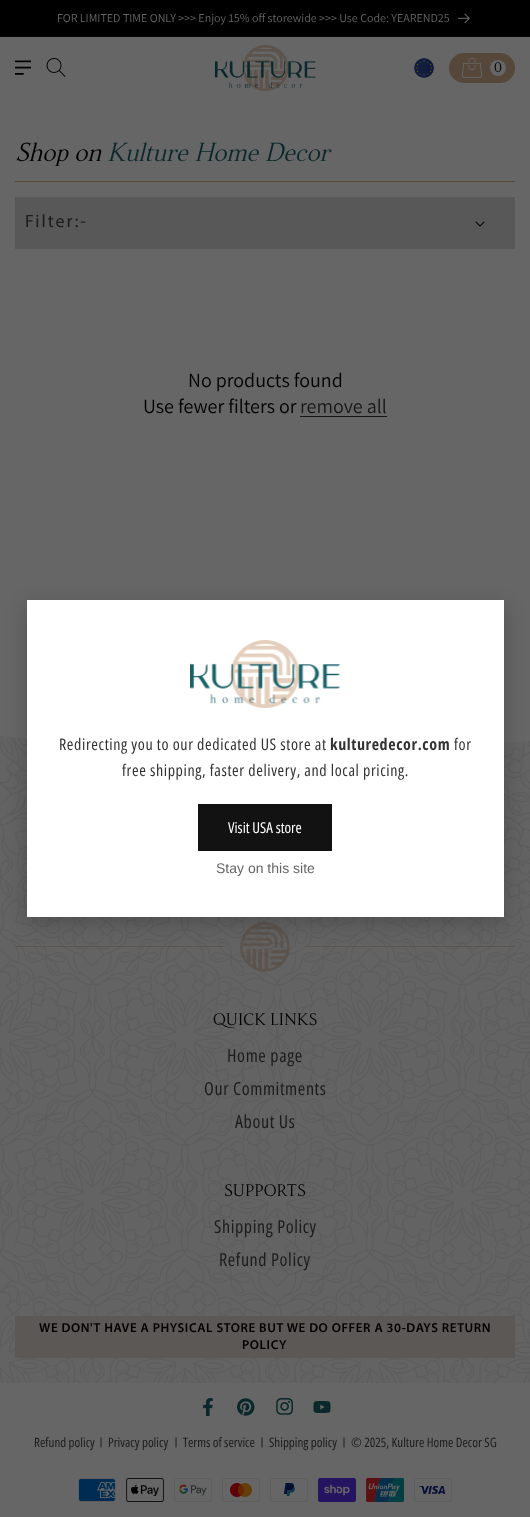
<?xml version="1.0" encoding="UTF-8"?>
<svg xmlns="http://www.w3.org/2000/svg" xmlns:xlink="http://www.w3.org/1999/xlink" width="530" height="1517">
  <rect width="100%" height="100%" fill="#666666" />
  <rect width="530" height="36" fill="#000000" />
  <rect y="36" width="530" height="1" fill="#080808" />
  <image x="458" y="13" width="12" height="10" xlink:href="image1.png" />
  <image x="15" y="60" width="16" height="15" xlink:href="image2.png" />
  <image x="46" y="58" width="20" height="19" xlink:href="image3.png" />
  <image x="215" y="45" width="101" height="46" xlink:href="image4.png" />
  <image x="414" y="58" width="20" height="20" xlink:href="image5.png" />
  <rect x="449" y="53" width="66" height="30" rx="15" fill="#55473a" />
  <image x="462" y="58" width="20" height="20" xlink:href="image6.png" />
  <circle cx="498" cy="68" r="8" fill="#666666" />
  <rect x="15" y="181" width="500" height="1" fill="#55473a" />
  <rect x="15" y="197" width="500" height="52" fill="#585858" />
  <image x="475" y="221" width="10" height="6" xlink:href="image7.png" />
  <rect x="300" y="416" width="87" height="1" fill="#161616" />
  <rect y="736" width="530" height="647" fill="#646363" />
  <image x="0" y="736" width="530" height="647" xlink:href="image9.png" />
  <path d="M 530 717 h -530 v 19 c 19 1 37 5 56 7 l 25 3 c 20 3 39 7 59 6 c 19 0 37 -4 55 -5 l 47 -3 c 21 -2 43 -5 65 -5 c 41 0 81 5 122 6 c 34 1 67 -1 101 -4 z" fill="#666666" />
  <rect x="15" y="946" width="210" height="1" fill="#5c554f" />
  <image x="240" y="922" width="50" height="50" xlink:href="image10.png" />
  <rect x="305" y="946" width="210" height="1" fill="#5c554f" />
  <rect x="27" y="606" width="477" height="317" fill="#000000" fill-opacity="0.2" filter="blur(10px)" />
  <rect x="27" y="600" width="477" height="317" fill="#ffffff" />
  <image x="190" y="640" width="150" height="68" xlink:href="image8.png" />
  <rect x="198" y="804" width="134" height="47" fill="#121212" />
  <rect x="15" y="1316" width="500" height="42" fill="#5c5856" />
  <image x="203" y="1398" width="10" height="18" xlink:href="image11.png" />
  <image x="237" y="1398" width="18" height="18" xlink:href="image12.png" />
  <image x="276" y="1398" width="17" height="17" xlink:href="image13.png" />
  <image x="313" y="1401" width="18" height="12" xlink:href="image14.png" />
  <image x="78" y="1478" width="38" height="24" xlink:href="image15.png" />
  <image x="126" y="1478" width="38" height="24" xlink:href="image16.png" />
  <image x="174" y="1478" width="38" height="24" xlink:href="image17.png" />
  <image x="222" y="1478" width="38" height="24" xlink:href="image18.png" />
  <image x="270" y="1478" width="38" height="24" xlink:href="image19.png" />
  <image x="318" y="1478" width="38" height="24" xlink:href="image20.png" />
  <image x="366" y="1478" width="38" height="24" xlink:href="image21.png" />
  <image x="414" y="1478" width="38" height="24" xlink:href="image22.png" />
  <text x="57" y="22" style="font-family: Assistant; font-size: 12px; fill: #666666">FOR LIMITED TIME ONLY &gt;&gt;&gt; Enjoy 15% off storewide &gt;&gt;&gt; Use Code: YEAREND25</text>
  <text x="494" y="72" style="font-family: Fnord; font-size: 15px; letter-spacing: 0.6px; fill: #000000">0</text>
  <text x="15" y="161" style="font-family: Fnord; font-size: 28px; font-style: italic; fill: #000000">Shop on</text>
  <text x="107" y="161" style="font-family: Fnord; font-size: 28px; font-style: italic; fill: #0a272a">Kulture Home Decor</text>
  <text x="25" y="227" style="font-family: Myriad; font-size: 18px; letter-spacing: 2px; fill: #1c1c1c">Filter:-</text>
  <text x="188" y="387" style="font-family: Assistant; font-size: 20px; fill: #000000">No products found</text>
  <text x="143" y="413" style="font-family: Assistant; font-size: 20px; fill: #000000">Use fewer filters or</text>
  <text x="300" y="413" style="font-family: Assistant; font-size: 20px; fill: #161616">remove all</text>
  <text x="59" y="750" style="font-family: Open Sans Condensed; font-size: 16px; letter-spacing: 0.6px; fill: #333333">Redirecting you to our dedicated US store at</text>
  <text x="330" y="750" style="font-family: Open Sans Condensed; font-size: 16px; font-weight: bold; letter-spacing: 0.6px; fill: #333333">kulturedecor.com</text>
  <text x="454" y="750" style="font-family: Open Sans Condensed; font-size: 16px; letter-spacing: 0.6px; fill: #333333">for</text>
  <text x="122" y="776" style="font-family: Open Sans Condensed; font-size: 16px; letter-spacing: 0.6px; fill: #333333">free shipping, faster delivery, and local pricing.</text>
  <text x="228" y="833" style="font-family: Open Sans Condensed; font-size: 15px; fill: #ffffff">Visit USA store</text>
  <text x="216" y="873" style="font-family: Liberation Sans; font-size: 14px; fill: #666666">Stay on this site</text>
  <text x="213" y="1025" style="font-family: Fnord; font-size: 18px; fill: #000000">QUICK LINKS</text>
  <text x="227" y="1062" style="font-family: Open Sans Condensed; font-size: 18px; letter-spacing: 0.6px; fill: #1c1c1c">Home page</text>
  <text x="204" y="1095" style="font-family: Open Sans Condensed; font-size: 18px; letter-spacing: 0.6px; fill: #1c1c1c">Our Commitments</text>
  <text x="235" y="1128" style="font-family: Open Sans Condensed; font-size: 18px; letter-spacing: 0.6px; fill: #1c1c1c">About Us</text>
  <text x="224" y="1196" style="font-family: Fnord; font-size: 18px; fill: #000000">SUPPORTS</text>
  <text x="214" y="1233" style="font-family: Open Sans Condensed; font-size: 18px; letter-spacing: 0.6px; fill: #1c1c1c">Shipping Policy</text>
  <text x="219" y="1266" style="font-family: Open Sans Condensed; font-size: 18px; letter-spacing: 0.6px; fill: #1c1c1c">Refund Policy</text>
  <text x="39" y="1332" style="font-family: Myriad; font-size: 13px; font-weight: 600; letter-spacing: 0.6px; fill: #000000">WE DON'T HAVE A PHYSICAL STORE BUT WE DO OFFER A 30-DAYS RETURN</text>
  <text x="242" y="1349" style="font-family: Myriad; font-size: 13px; font-weight: 600; letter-spacing: 0.6px; fill: #000000">POLICY</text>
  <text x="34" y="1447" style="font-family: Open Sans Condensed; font-size: 13px; fill: #1c1c1c">Refund policy</text>
  <text x="99" y="1445" style="font-family: Open Sans Condensed; font-size: 10px; fill: #000000">|</text>
  <text x="108" y="1447" style="font-family: Open Sans Condensed; font-size: 13px; fill: #1c1c1c">Privacy policy</text>
  <text x="174" y="1445" style="font-family: Open Sans Condensed; font-size: 10px; fill: #000000">|</text>
  <text x="183" y="1447" style="font-family: Open Sans Condensed; font-size: 13px; fill: #1c1c1c">Terms of service</text>
  <text x="260" y="1445" style="font-family: Open Sans Condensed; font-size: 10px; fill: #000000">|</text>
  <text x="269" y="1447" style="font-family: Open Sans Condensed; font-size: 13px; fill: #1c1c1c">Shipping policy</text>
  <text x="342" y="1445" style="font-family: Open Sans Condensed; font-size: 10px; fill: #000000">|</text>
  <text x="351" y="1447" style="font-family: Open Sans Condensed; font-size: 13px; fill: #1c1c1c">© 2025, Kulture Home Decor SG</text>
</svg>
